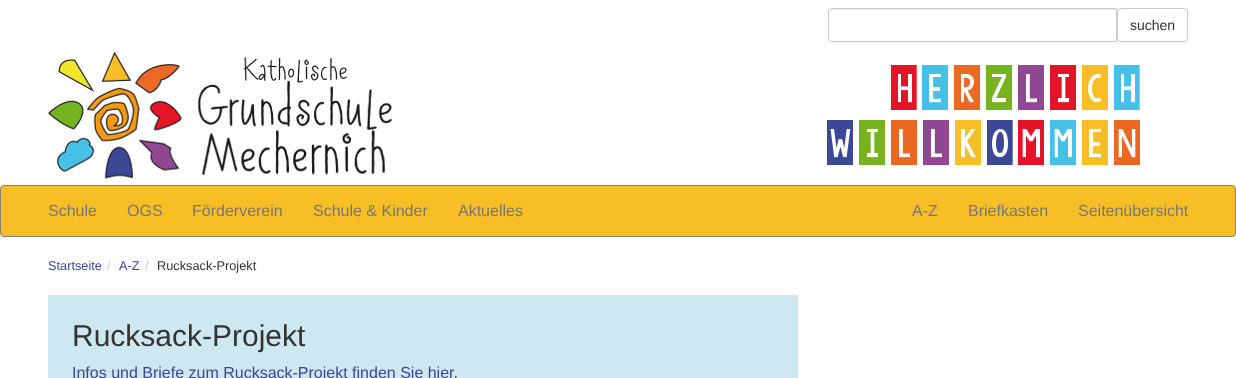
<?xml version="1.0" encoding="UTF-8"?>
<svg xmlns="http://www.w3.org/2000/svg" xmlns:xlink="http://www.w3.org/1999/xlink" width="1236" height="378">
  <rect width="100%" height="100%" fill="#ffffff" />
  <path d="M 832 10 h 284 v -1 h -284 c -2 0 -3 2 -3 4 c 0 -2 1 -3 3 -3 z" fill="#ececec" />
  <path d="M 832 8.5 h 284.5 v 33 h -284.5 c -2 0 -3.5 -1.5 -3.5 -3.5 v -26 c 0 -2 1.5 -3.5 3.5 -3.5 z" fill="none" stroke="#cccccc" />
  <rect x="1117.5" y="8.5" width="70" height="33" rx="3.5" fill="none" stroke="#cccccc" />
  <image x="827" y="65" width="313" height="100" xlink:href="image1.png" />
  <image x="48" y="51" width="344" height="128" xlink:href="image2.png" />
  <rect x="0.5" y="185.5" width="1235" height="51" rx="3.5" fill="#f7be26" stroke="#8b836f" />
  <rect x="48" y="295" width="750" height="83" fill="#cee8f1" />
  <text x="1130" y="30" style="font-family: Liberation Sans; font-size: 14px; fill: #333333">suchen</text>
  <text x="48" y="216" style="font-family: Liberation Sans; font-size: 16px; fill: #777777">Schule</text>
  <text x="127" y="216" style="font-family: Liberation Sans; font-size: 16px; fill: #777777">OGS</text>
  <text x="192" y="216" style="font-family: Liberation Sans; font-size: 16px; fill: #777777">Förderverein</text>
  <text x="313" y="216" style="font-family: Liberation Sans; font-size: 16px; fill: #777777">Schule &amp; Kinder</text>
  <text x="458" y="216" style="font-family: Liberation Sans; font-size: 16px; fill: #777777">Aktuelles</text>
  <text x="912" y="216" style="font-family: Liberation Sans; font-size: 16px; fill: #777777">A-Z</text>
  <text x="968" y="216" style="font-family: Liberation Sans; font-size: 16px; fill: #777777">Briefkasten</text>
  <text x="1078" y="216" style="font-family: Liberation Sans; font-size: 16px; fill: #777777">Seitenübersicht</text>
  <text x="48" y="270" style="font-family: Liberation Sans; font-size: 12.75px; fill: #3b4896">Startseite</text>
  <text x="107" y="270" style="font-family: Liberation Sans; font-size: 12.75px; fill: #cccccc">/</text>
  <text x="119" y="270" style="font-family: Liberation Sans; font-size: 12.75px; fill: #3b4896">A-Z</text>
  <text x="145" y="270" style="font-family: Liberation Sans; font-size: 12.75px; fill: #cccccc">/</text>
  <text x="157" y="270" style="font-family: Liberation Sans; font-size: 12.75px; fill: #333333">Rucksack-Projekt</text>
  <text x="72" y="346" style="font-family: Liberation Sans; font-size: 30px; fill: #333333">Rucksack-Projekt</text>
  <text x="72" y="378" style="font-family: Liberation Sans; font-size: 16px; fill: #3b4896">Infos und Briefe zum Rucksack-Projekt finden Sie hier.</text>
</svg>
